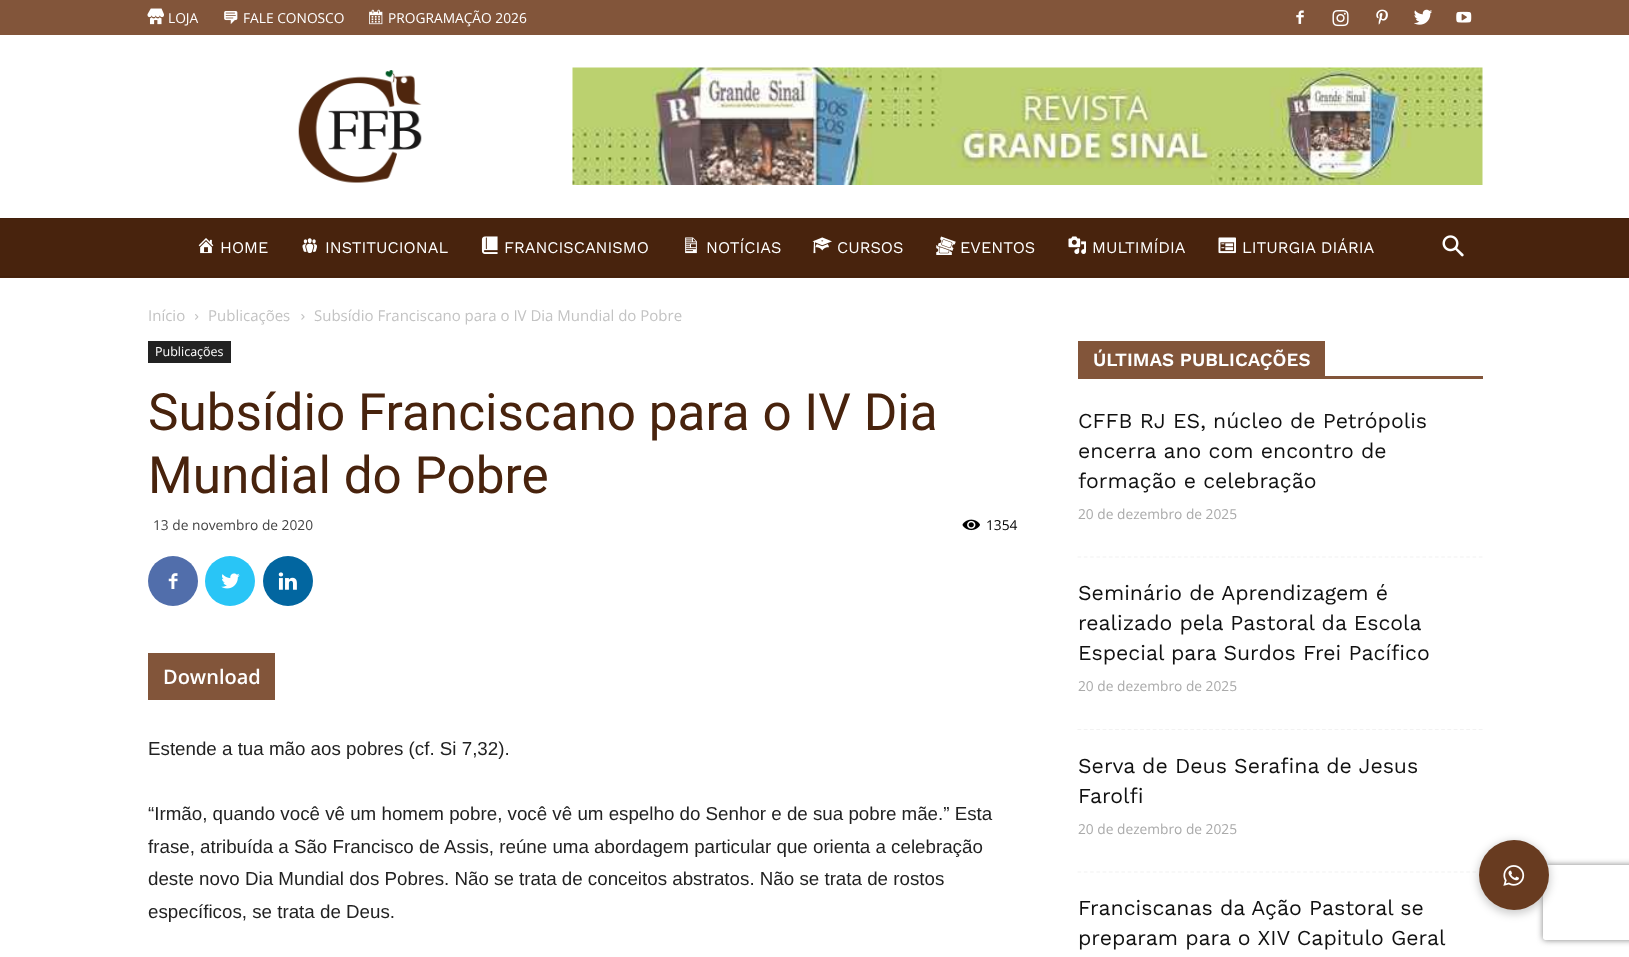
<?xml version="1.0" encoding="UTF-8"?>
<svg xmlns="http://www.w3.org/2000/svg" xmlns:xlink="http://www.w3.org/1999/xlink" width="1629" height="957">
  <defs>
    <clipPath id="clip1"><path d="M 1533 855 h 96 v 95 h -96 z m 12.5 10 h 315 c 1.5 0 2.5 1 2.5 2.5 v 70 c 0 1.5 -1 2.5 -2.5 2.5 h -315 c -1.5 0 -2.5 -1 -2.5 -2.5 v -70 c 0 -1.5 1 -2.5 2.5 -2.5 z" clip-rule="evenodd" /></clipPath>
  </defs>
  <rect width="100%" height="100%" fill="#ffffff" />
  <rect width="1629" height="35" fill="#82553a" />
  <image x="147" y="8" width="17" height="17" xlink:href="image1.png" />
  <image x="224" y="11" width="14" height="13" xlink:href="image2.png" />
  <image x="369" y="9" width="14" height="16" xlink:href="image3.png" />
  <image x="1296" y="10" width="8" height="14" xlink:href="image4.png" />
  <image x="1332" y="10" width="17" height="17" xlink:href="image5.png" />
  <image x="1376" y="9" width="12" height="16" xlink:href="image6.png" />
  <image x="1414" y="9" width="18" height="16" xlink:href="image7.png" />
  <image x="1456" y="11" width="16" height="12" xlink:href="image8.png" />
  <image x="298" y="70" width="124" height="113" xlink:href="image9.png" />
  <image x="572" y="67" width="911" height="118" xlink:href="image10.png" />
  <rect y="219" width="1629" height="59" fill="#48230d" />
  <rect y="218" width="1629" height="1" fill="#42200c" />
  <image x="198" y="238" width="16" height="16" xlink:href="image11.png" />
  <image x="302" y="238" width="15" height="16" xlink:href="image12.png" />
  <image x="481" y="236" width="17" height="18" xlink:href="image13.png" />
  <image x="685" y="237" width="12" height="17" xlink:href="image14.png" />
  <image x="812" y="237" width="20" height="17" xlink:href="image15.png" />
  <image x="936" y="236" width="20" height="19" xlink:href="image16.png" />
  <image x="1068" y="236" width="18" height="18" xlink:href="image17.png" />
  <image x="1218" y="237" width="18" height="17" xlink:href="image18.png" />
  <image x="1442" y="235" width="22" height="22" xlink:href="image19.png" />
  <rect y="276" width="1629" height="1" fill="#42200c" />
  <image x="195" y="314" width="4" height="6" xlink:href="image20.png" />
  <image x="301" y="314" width="4" height="6" xlink:href="image21.png" />
  <rect x="148" y="341" width="83" height="22" fill="#222222" />
  <image x="962" y="519" width="18" height="12" xlink:href="image22.png" />
  <circle cx="173" cy="581" r="25" fill="#516eab" />
  <image x="168" y="573" width="10" height="16" xlink:href="image23.png" />
  <circle cx="230" cy="581" r="25" fill="#29c5f6" />
  <image x="221" y="573" width="19" height="16" xlink:href="image24.png" />
  <circle cx="288" cy="581" r="25" fill="#0266a0" />
  <image x="278" y="572" width="19" height="18" xlink:href="image25.png" />
  <rect x="148" y="653" width="127" height="47" fill="#82553a" />
  <rect x="1078" y="376" width="405" height="3" fill="#82553a" />
  <rect x="1078" y="341" width="247" height="35" fill="#82553a" />
  <path d="M 1077.5 557 h 405" fill="none" stroke="#f2f2f2" stroke-width="1.2" stroke-dasharray="3.75 2.52" />
  <path d="M 1077.5 729.5 h 405" fill="none" stroke="#f2f2f2" stroke-width="1.2" stroke-dasharray="3.75 2.52" />
  <path d="M 1077.5 872 h 405" fill="none" stroke="#f2f2f2" stroke-width="1.2" stroke-dasharray="3.75 2.52" />
  <rect x="1478" y="841" width="72" height="73" rx="36" fill="#000000" fill-opacity="0.2" filter="blur(4px)" />
  <g clip-path="url(#clip1)">
    <rect x="1543" y="865" width="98" height="75" rx="2.5" fill="#808080" filter="blur(3px)" />
  </g>
  <circle cx="1514" cy="875" r="35" fill="#683b20" />
  <image x="1503" y="865" width="22" height="21" xlink:href="image26.png" />
  <text x="168" y="23" style="font-family: Open Sans; font-size: 13.75px; fill: #ffffff">LOJA</text>
  <text x="243" y="23" style="font-family: Open Sans; font-size: 13.75px; fill: #ffffff">FALE CONOSCO</text>
  <text x="388" y="23" style="font-family: Open Sans; font-size: 13.75px; fill: #ffffff">PROGRAMAÇÃO 2026</text>
  <text x="220" y="253" style="font-family: Work Sans; font-size: 16.25px; fill: #ffffff">HOME</text>
  <text x="325" y="253" style="font-family: Work Sans; font-size: 16.25px; fill: #ffffff">INSTITUCIONAL</text>
  <text x="504" y="253" style="font-family: Work Sans; font-size: 16.25px; fill: #ffffff">FRANCISCANISMO</text>
  <text x="706" y="253" style="font-family: Work Sans; font-size: 16.25px; fill: #ffffff">NOTÍCIAS</text>
  <text x="837" y="253" style="font-family: Work Sans; font-size: 16.25px; fill: #ffffff">CURSOS</text>
  <text x="960" y="253" style="font-family: Work Sans; font-size: 16.25px; fill: #ffffff">EVENTOS</text>
  <text x="1092" y="253" style="font-family: Work Sans; font-size: 16.25px; fill: #ffffff">MULTIMÍDIA</text>
  <text x="1242" y="253" style="font-family: Work Sans; font-size: 16.25px; fill: #ffffff">LITURGIA DIÁRIA</text>
  <text x="148" y="321" style="font-family: Open Sans; font-size: 15px; fill: #c3c3c3">Início</text>
  <text x="208" y="321" style="font-family: Open Sans; font-size: 15px; fill: #c3c3c3">Publicações</text>
  <text x="314" y="321" style="font-family: Open Sans; font-size: 15px; fill: #c3c3c3">Subsídio Franciscano para o IV Dia Mundial do Pobre</text>
  <text x="155" y="356" style="font-family: Open Sans; font-size: 12.5px; fill: #ffffff">Publicações</text>
  <text x="148" y="430" style="font-family: Roboto; font-size: 51.25px; fill: #48230d">Subsídio Franciscano para o IV Dia</text>
  <text x="148" y="493" style="font-family: Roboto; font-size: 51.25px; fill: #48230d">Mundial do Pobre</text>
  <text x="153" y="530" style="font-family: Open Sans; font-size: 13.75px; fill: #444444">13 de novembro de 2020</text>
  <text x="986" y="530" style="font-family: Open Sans; font-size: 13.75px; fill: #000000">1354</text>
  <text x="163" y="684" style="font-family: Open Sans; font-size: 20px; font-weight: 600; fill: #ffffff">Download</text>
  <text x="148" y="755" style="font-family: Liberation Sans; font-size: 18.75px; fill: #222222">Estende a tua mão aos pobres (cf. Si 7,32).</text>
  <text x="148" y="820" style="font-family: Liberation Sans; font-size: 18.75px; fill: #222222">“Irmão, quando você vê um homem pobre, você vê um espelho do Senhor e de sua pobre mãe.” Esta</text>
  <text x="148" y="853" style="font-family: Liberation Sans; font-size: 18.75px; fill: #222222">frase, atribuída a São Francisco de Assis, reúne uma abordagem particular que orienta a celebração</text>
  <text x="148" y="885" style="font-family: Liberation Sans; font-size: 18.75px; fill: #222222">deste novo Dia Mundial dos Pobres. Não se trata de conceitos abstratos. Não se trata de rostos</text>
  <text x="148" y="918" style="font-family: Liberation Sans; font-size: 18.75px; fill: #222222">específicos, se trata de Deus.</text>
  <text x="1093" y="366" style="font-family: Work Sans; font-size: 18.75px; font-weight: 600; fill: #ffffff">ÚLTIMAS PUBLICAÇÕES</text>
  <text x="1078" y="428" style="font-family: Work Sans; font-size: 21.25px; fill: #111111">CFFB RJ ES, núcleo de Petrópolis</text>
  <text x="1078" y="458" style="font-family: Work Sans; font-size: 21.25px; fill: #111111">encerra ano com encontro de</text>
  <text x="1078" y="488" style="font-family: Work Sans; font-size: 21.25px; fill: #111111">formação e celebração</text>
  <text x="1078" y="519" style="font-family: Open Sans; font-size: 13.75px; fill: #aaaaaa">20 de dezembro de 2025</text>
  <text x="1078" y="600" style="font-family: Work Sans; font-size: 21.25px; fill: #111111">Seminário de Aprendizagem é</text>
  <text x="1078" y="630" style="font-family: Work Sans; font-size: 21.25px; fill: #111111">realizado pela Pastoral da Escola</text>
  <text x="1078" y="660" style="font-family: Work Sans; font-size: 21.25px; fill: #111111">Especial para Surdos Frei Pacífico</text>
  <text x="1078" y="691" style="font-family: Open Sans; font-size: 13.75px; fill: #aaaaaa">20 de dezembro de 2025</text>
  <text x="1078" y="773" style="font-family: Work Sans; font-size: 21.25px; fill: #111111">Serva de Deus Serafina de Jesus</text>
  <text x="1078" y="803" style="font-family: Work Sans; font-size: 21.25px; fill: #111111">Farolfi</text>
  <text x="1078" y="834" style="font-family: Open Sans; font-size: 13.75px; fill: #aaaaaa">20 de dezembro de 2025</text>
  <text x="1078" y="915" style="font-family: Work Sans; font-size: 21.25px; fill: #111111">Franciscanas da Ação Pastoral se</text>
  <text x="1078" y="945" style="font-family: Work Sans; font-size: 21.25px; fill: #111111">preparam para o XIV Capitulo Geral</text>
</svg>
